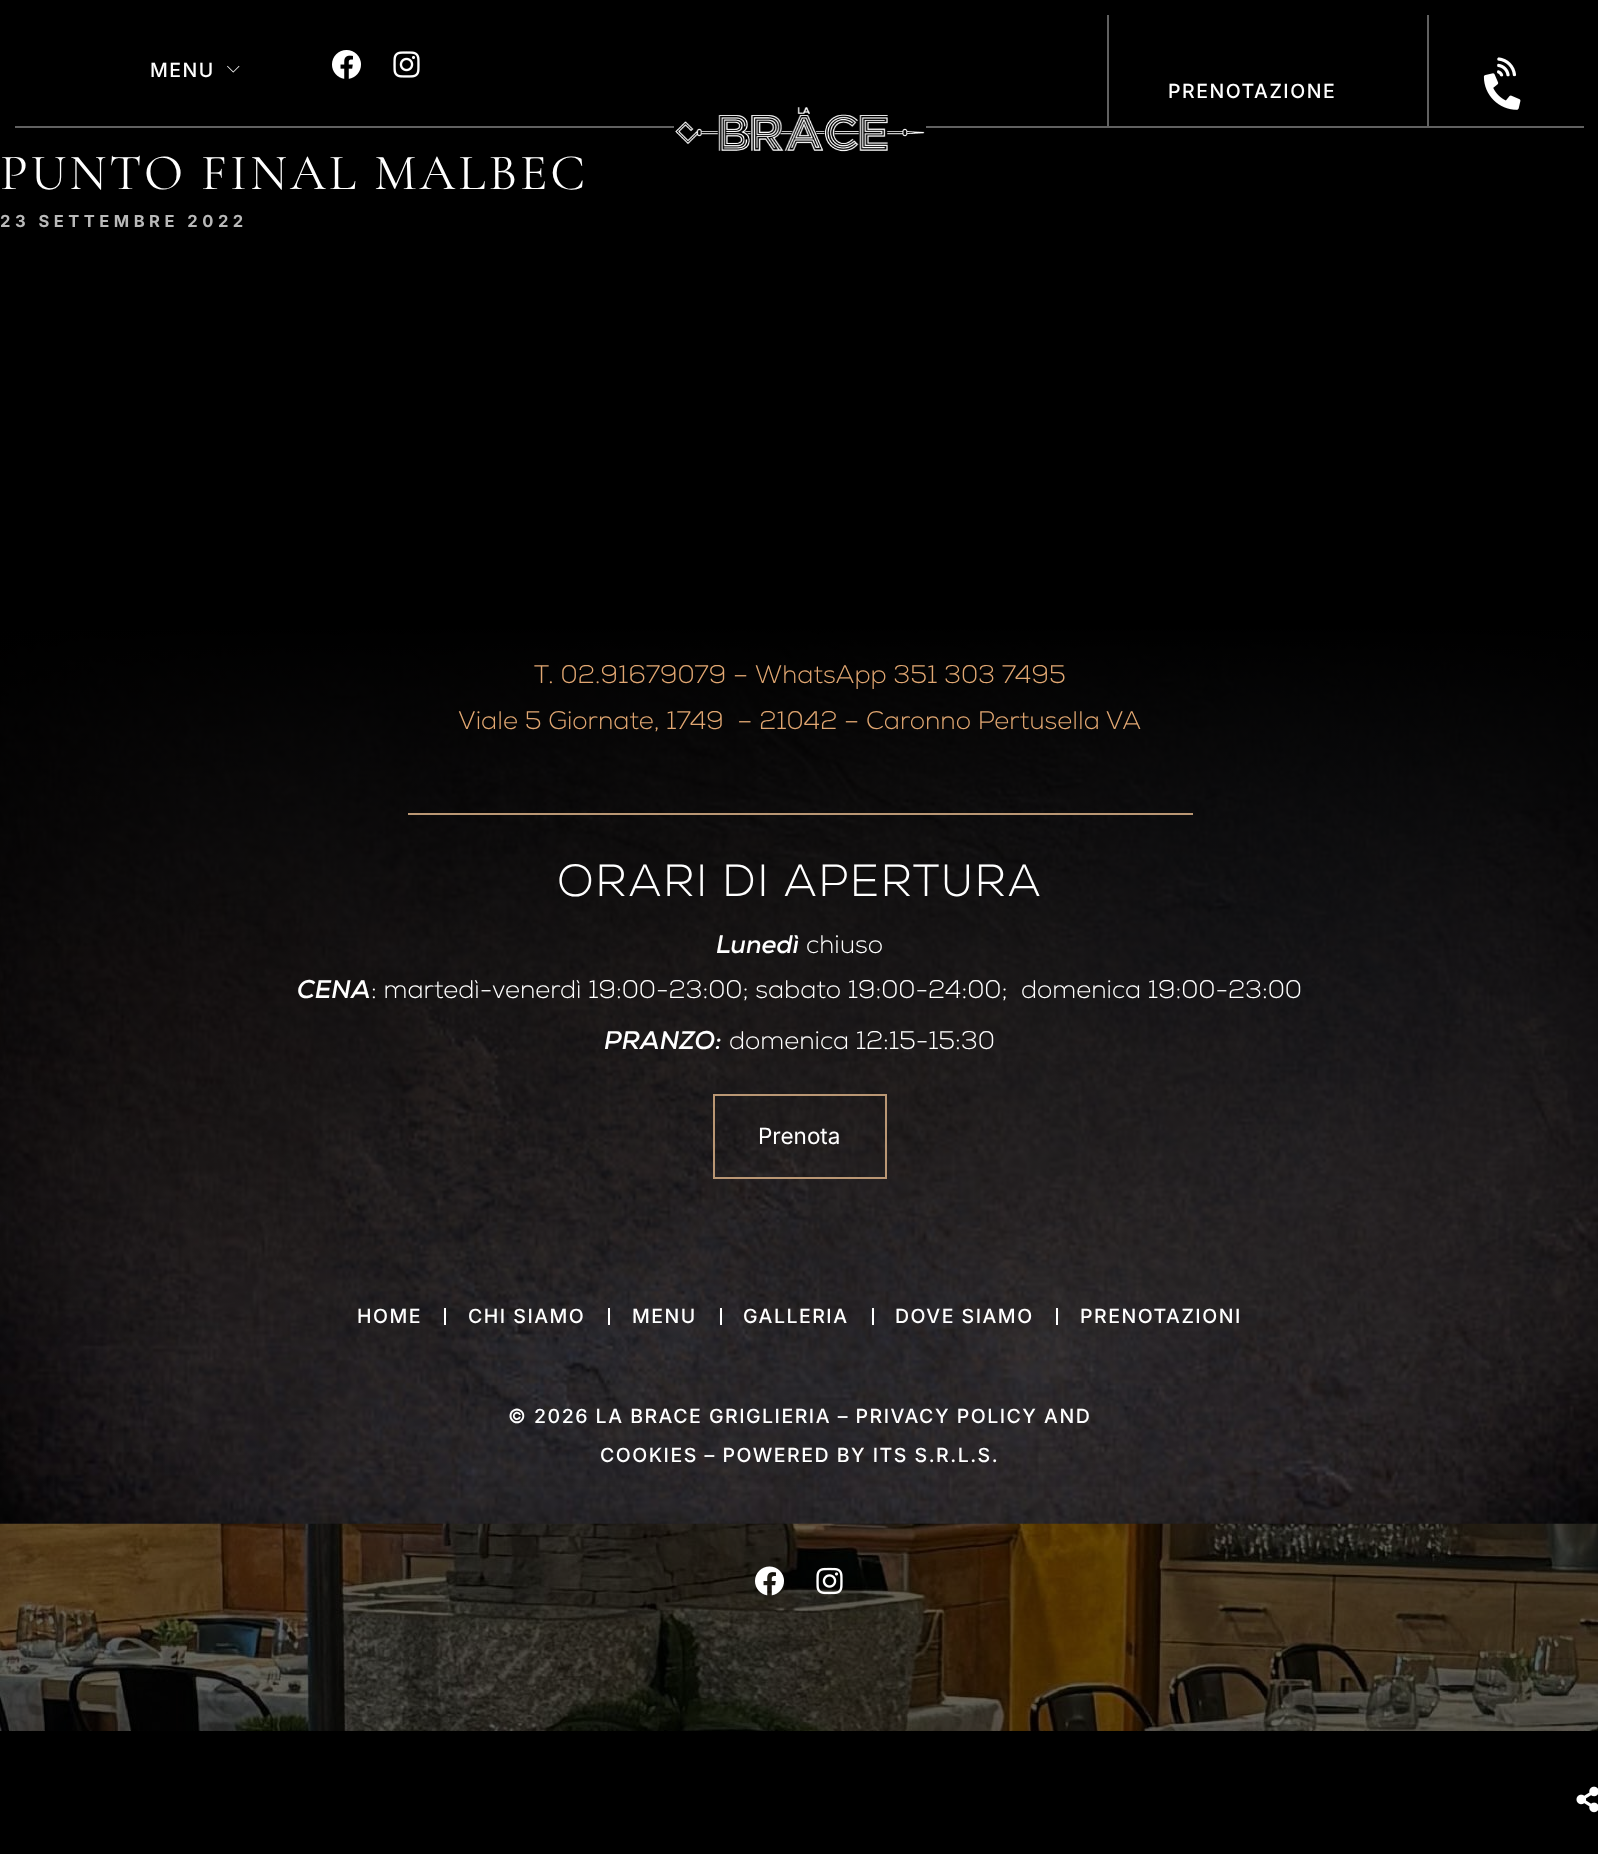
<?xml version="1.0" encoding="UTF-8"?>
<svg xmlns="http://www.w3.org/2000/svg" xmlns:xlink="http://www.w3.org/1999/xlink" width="1598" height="1854">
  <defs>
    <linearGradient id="g1" gradientUnits="userSpaceOnUse" x1="800" y1="624" x2="800" y2="1524"><stop offset="0" stop-color="#000000" /><stop offset="1" stop-color="#000000" stop-opacity="0" /></linearGradient>
  </defs>
  <rect width="100%" height="100%" fill="#000000" />
  <rect x="15" y="126" width="659" height="2" fill="#616161" />
  <image x="227" y="65" width="13" height="8" xlink:href="image1.png" />
  <image x="332" y="50" width="29" height="29" xlink:href="image2.png" />
  <image x="393" y="51" width="27" height="27" xlink:href="image3.png" />
  <rect x="926" y="126" width="658" height="2" fill="#616161" />
  <rect x="1107" y="15" width="2" height="111" fill="#616161" />
  <rect x="1427" y="15" width="2" height="111" fill="#616161" />
  <image x="1483" y="57" width="38" height="53" xlink:href="image4.png" />
  <image x="675" y="107" width="250" height="45" xlink:href="image5.png" />
  <image x="0" y="1523" width="1598" height="208" xlink:href="image6.png" />
  <image x="0" y="629" width="1598" height="895" xlink:href="image7.png" />
  <rect y="629" width="1598" height="858" fill="url(#g1)" />
  <rect x="408" y="813" width="785" height="2" fill="#ba9774" />
  <rect x="714" y="1095" width="172" height="83" fill="none" stroke="#ba9774" stroke-width="2" />
  <rect x="444" y="1308" width="2" height="17" fill="#ffffff" />
  <rect x="608" y="1308" width="2" height="17" fill="#ffffff" />
  <rect x="720" y="1308" width="2" height="17" fill="#ffffff" />
  <rect x="872" y="1308" width="2" height="17" fill="#ffffff" />
  <rect x="1056" y="1308" width="2" height="17" fill="#ffffff" />
  <image x="755" y="1566" width="29" height="30" xlink:href="image8.png" />
  <image x="816" y="1567" width="27" height="28" xlink:href="image9.png" />
  <image x="1576" y="1786" width="22" height="27" xlink:href="image10.png" />
  <text x="150" y="77" style="font-family: Inter; font-size: 19.5px; font-weight: 500; letter-spacing: 1.5px; fill: #ffffff">MENU</text>
  <text x="1168" y="98" style="font-family: Inter; font-size: 19.5px; font-weight: 500; letter-spacing: 1.5px; fill: #ffffff">PRENOTAZIONE</text>
  <text x="0" y="189" style="font-family: Cormorant Garamond; font-size: 51px; letter-spacing: 3px; fill: #ffffff">PUNTO FINAL MALBEC</text>
  <text x="0" y="227" style="font-family: Inter; font-size: 16.5px; font-weight: bold; letter-spacing: 4.5px; fill: #b9b9b9">23 SETTEMBRE 2022</text>
  <text x="534" y="683" style="font-family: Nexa; font-size: 25.5px; font-weight: 300; fill: #e1a772">T. 02.91679079 – WhatsApp 351 303 7495</text>
  <text x="458" y="729" style="font-family: Nexa; font-size: 25.5px; font-weight: 300; fill: #e1a772" xml:space="preserve">Viale 5 Giornate, 1749  – 21042 – Caronno Pertusella VA</text>
  <text x="557" y="896" style="font-family: Nexa; font-size: 45px; font-weight: 300; letter-spacing: 1.5px; fill: #ffffff">ORARI DI APERTURA</text>
  <text x="716" y="953" style="font-family: Nexa; font-size: 25.5px; font-weight: bold; font-style: italic; fill: #ffffff">Lunedì</text>
  <text x="806" y="953" style="font-family: Nexa; font-size: 25.5px; font-weight: 300; fill: #ffffff">chiuso</text>
  <text x="297" y="998" style="font-family: Nexa; font-size: 25.5px; font-weight: bold; font-style: italic; fill: #ffffff">CENA</text>
  <text x="371" y="998" style="font-family: Nexa; font-size: 25.5px; font-weight: 300; fill: #ffffff" xml:space="preserve">: martedì-venerdì 19:00-23:00; sabato 19:00-24:00;  domenica 19:00-23:00</text>
  <text x="604" y="1049" style="font-family: Nexa; font-size: 25.5px; font-weight: bold; font-style: italic; fill: #ffffff">PRANZO:</text>
  <text x="729" y="1049" style="font-family: Nexa; font-size: 25.5px; font-weight: 300; fill: #ffffff">domenica 12:15-15:30</text>
  <text x="758" y="1144" style="font-family: Inter; font-size: 22.5px; fill: #ffffff">Prenota</text>
  <text x="357" y="1323" style="font-family: Inter; font-size: 19.5px; font-weight: 500; letter-spacing: 1.5px; fill: #ffffff">HOME</text>
  <text x="468" y="1323" style="font-family: Inter; font-size: 19.5px; font-weight: 500; letter-spacing: 1.5px; fill: #ffffff">CHI SIAMO</text>
  <text x="632" y="1323" style="font-family: Inter; font-size: 19.5px; font-weight: 500; letter-spacing: 1.5px; fill: #ffffff">MENU</text>
  <text x="743" y="1323" style="font-family: Inter; font-size: 19.5px; font-weight: 500; letter-spacing: 1.5px; fill: #ffffff">GALLERIA</text>
  <text x="895" y="1323" style="font-family: Inter; font-size: 19.5px; font-weight: 500; letter-spacing: 1.5px; fill: #ffffff">DOVE SIAMO</text>
  <text x="1080" y="1323" style="font-family: Inter; font-size: 19.5px; font-weight: 500; letter-spacing: 1.5px; fill: #ffffff">PRENOTAZIONI</text>
  <text x="508" y="1423" style="font-family: Inter; font-size: 19.5px; font-weight: 500; letter-spacing: 1.5px; fill: #ffffff">© 2026 LA BRACE GRIGLIERIA – PRIVACY POLICY AND</text>
  <text x="600" y="1462" style="font-family: Inter; font-size: 19.5px; font-weight: 500; letter-spacing: 1.5px; fill: #ffffff">COOKIES – POWERED BY ITS S.R.L.S.</text>
</svg>
